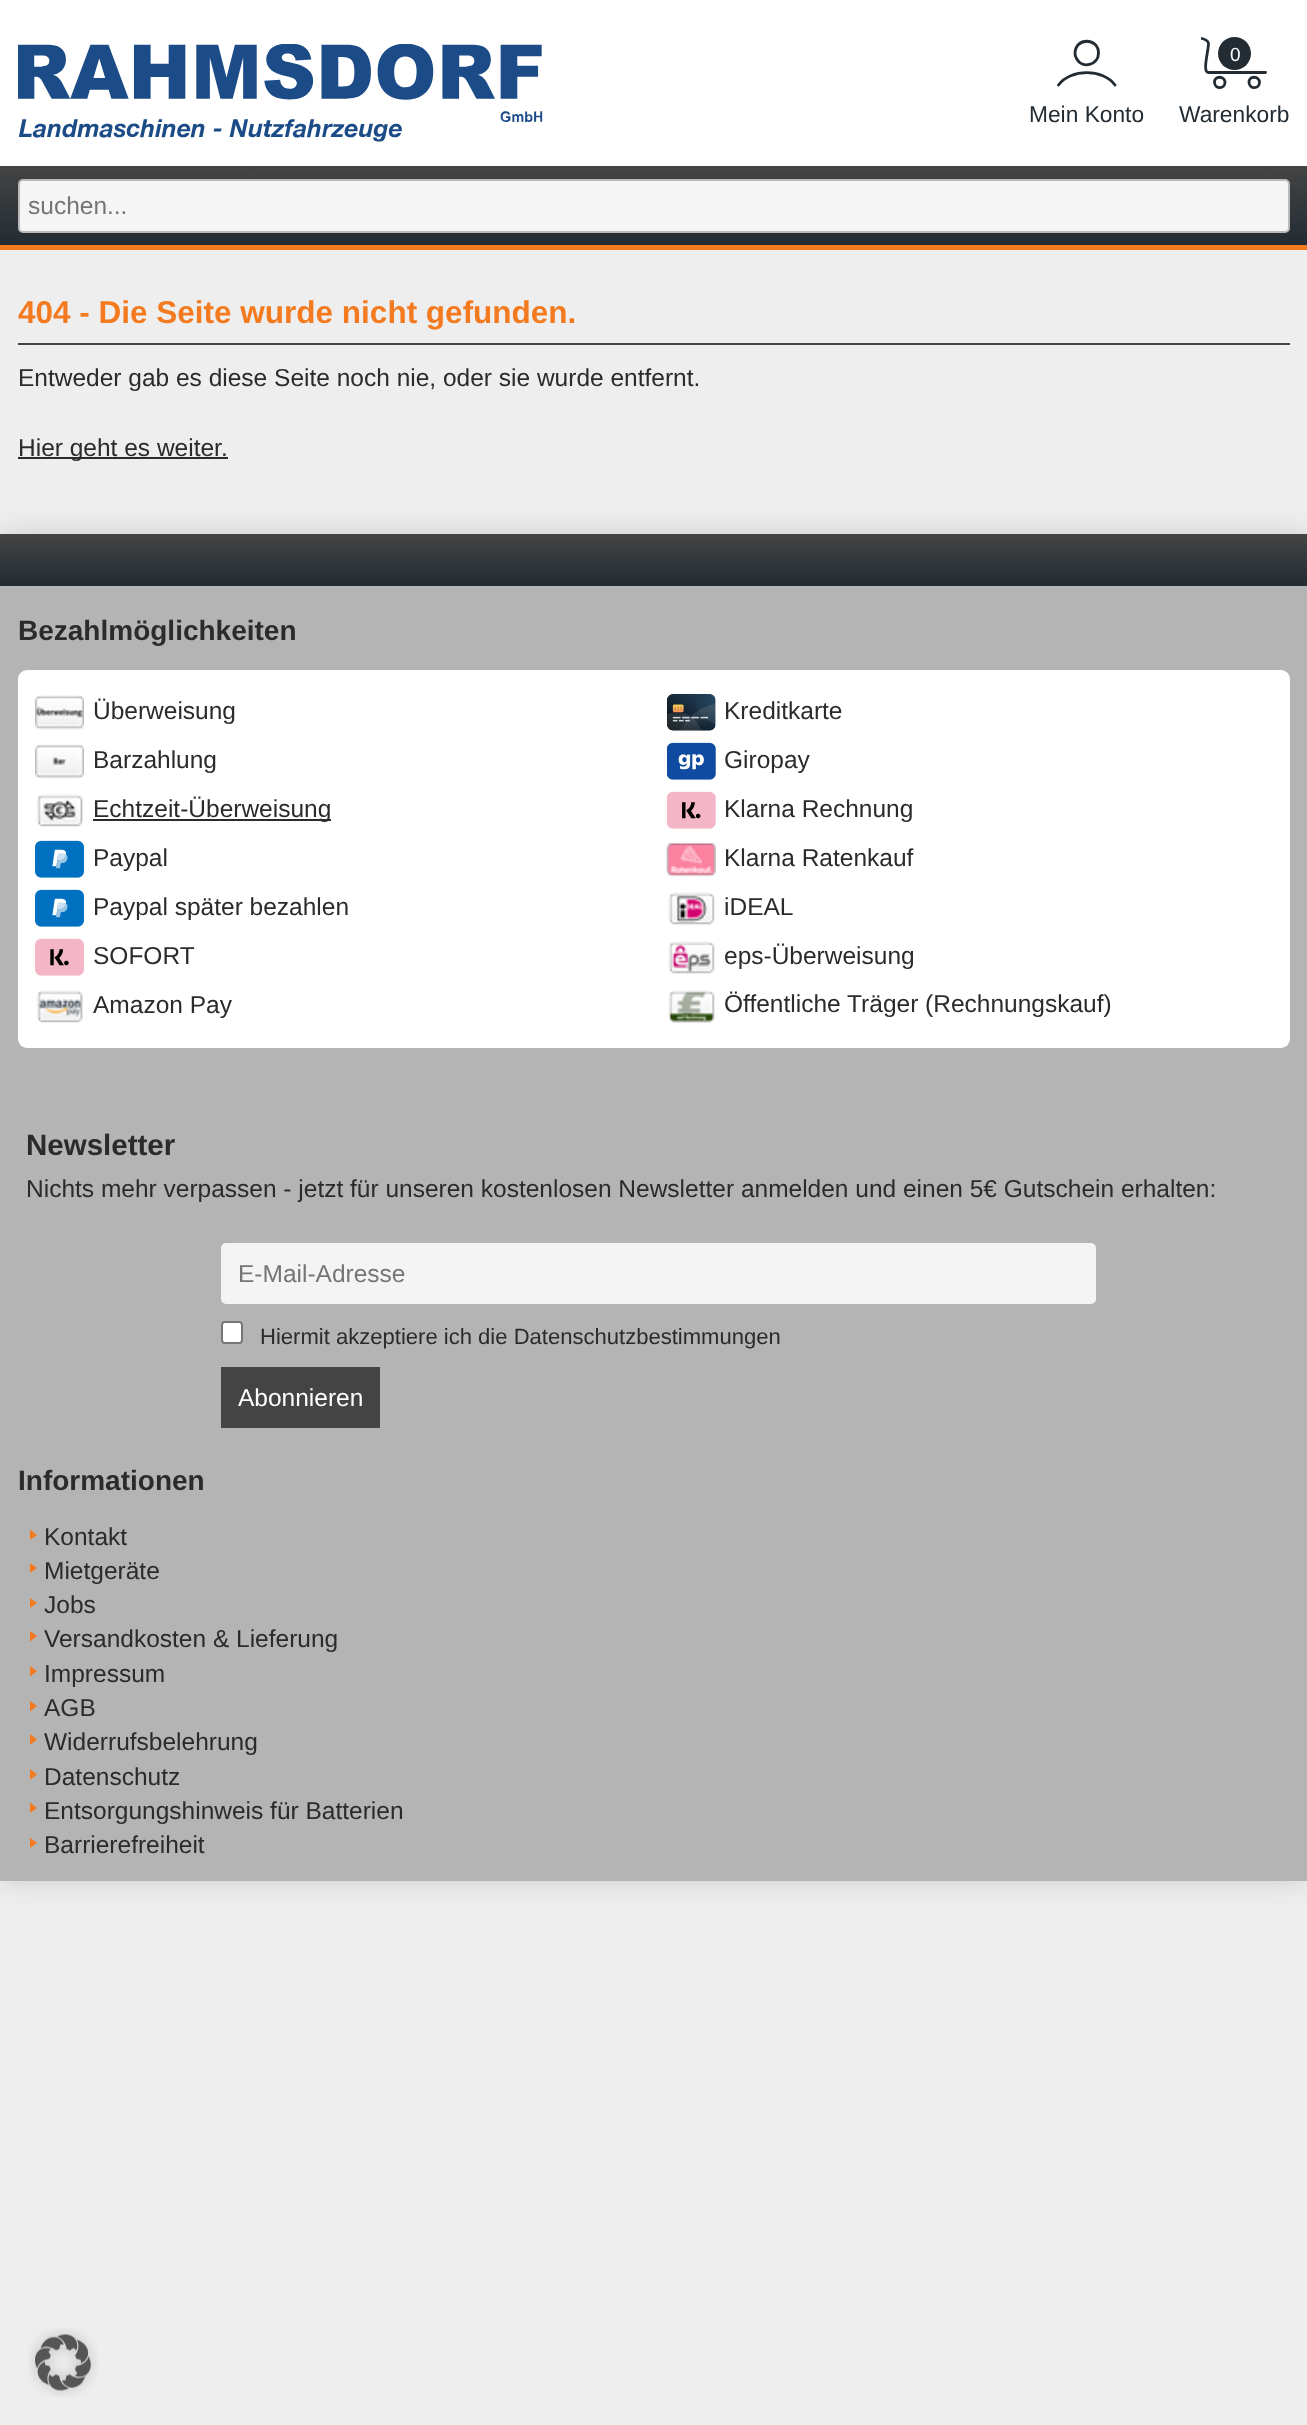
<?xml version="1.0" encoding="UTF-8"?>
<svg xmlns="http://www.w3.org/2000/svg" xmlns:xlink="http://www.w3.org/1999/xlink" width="1307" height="2425">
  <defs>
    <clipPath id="clip1"><rect x="1201" y="37" width="66" height="52" /></clipPath>
    <linearGradient id="g1" gradientUnits="userSpaceOnUse" x1="654" y1="166" x2="654" y2="245"><stop offset="0" stop-color="#444444" /><stop offset="1" stop-color="#232c33" /></linearGradient>
    <linearGradient id="g2" gradientUnits="userSpaceOnUse" x1="654" y1="534" x2="654" y2="586"><stop offset="0" stop-color="#444444" /><stop offset="1" stop-color="#232c33" /></linearGradient>
  </defs>
  <rect width="100%" height="100%" fill="#eeeeee" />
  <rect width="1307" height="166" fill="#ffffff" />
  <image x="18" y="44" width="525" height="98" xlink:href="image1.png" />
  <path d="M 1098.5 53 c 0 12 -16.5 16.5 -22 5.5 c -1 -1.5 -1.5 -3.5 -1.5 -5.5 c 0.5 -16 23.5 -15.5 23.5 0 z" fill="none" stroke="#232c33" stroke-width="2.9" />
  <path d="M 1058.5 85 c 12 -16.5 44.5 -16.5 56.5 0" fill="none" stroke="#232c33" stroke-width="2.9" stroke-linecap="round" />
  <g clip-path="url(#clip1)">
    <path d="M 1202 38.5 c 0 0 6.5 2 6.5 5 c 0 7.5 -6.5 29 0 29 h 57" fill="none" stroke="#232c33" stroke-width="2.8" stroke-linecap="round" stroke-linejoin="round" />
  </g>
  <circle cx="1234.5" cy="53.5" r="16.5" fill="#232c33" />
  <path d="M 1225 82.5 c 0 6.5 -10 7 -10.5 0 c -0.5 -7 10.5 -7 10.5 0 z m 34.5 0 c 0 6.5 -10 7 -10.5 0 c -0.5 -7 10.5 -7 10.5 0 z" fill="none" stroke="#232c33" stroke-width="2.8" stroke-linecap="round" stroke-linejoin="round" />
  <rect y="166" width="1307" height="79" fill="url(#g1)" />
  <rect y="245" width="1307" height="5" fill="#f37a1f" />
  <rect x="19" y="180" width="1270" height="52" rx="4" fill="#f5f5f5" stroke="#b9b9b9" stroke-width="2" />
  <rect x="18" y="343" width="1272" height="2" fill="#444444" />
  <rect x="18" y="457" width="210" height="2" fill="#2b2b2b" />
  <rect y="534" width="1307" height="1347" fill="#cccccc" filter="blur(13px)" />
  <rect y="586" width="1307" height="1295" fill="#b4b4b4" />
  <rect y="534" width="1307" height="52" fill="url(#g2)" />
  <rect x="18" y="670" width="1272" height="378" rx="9" fill="#ffffff" />
  <image x="35" y="695" width="49" height="35" xlink:href="image2.png" />
  <image x="667" y="694" width="49" height="37" xlink:href="image3.png" />
  <image x="35" y="744" width="49" height="35" xlink:href="image4.png" />
  <image x="667" y="742" width="49" height="38" xlink:href="image5.png" />
  <image x="36" y="794" width="47" height="33" xlink:href="image6.png" />
  <rect x="93" y="819" width="238" height="2" fill="#2b2b2b" />
  <image x="667" y="791" width="49" height="38" xlink:href="image7.png" />
  <image x="35" y="840" width="49" height="38" xlink:href="image8.png" />
  <image x="666" y="842" width="50" height="35" xlink:href="image9.png" />
  <image x="35" y="889" width="49" height="38" xlink:href="image8.png" />
  <image x="668" y="892" width="47" height="33" xlink:href="image10.png" />
  <image x="35" y="938" width="49" height="38" xlink:href="image11.png" />
  <image x="668" y="941" width="47" height="33" xlink:href="image12.png" />
  <image x="36" y="990" width="47" height="33" xlink:href="image13.png" />
  <image x="668" y="990" width="47" height="33" xlink:href="image14.png" />
  <rect x="221" y="1243" width="875" height="61" rx="5" fill="#f4f4f4" />
  <rect x="222" y="1322" width="20" height="21" rx="3" fill="#ffffff" stroke="#767676" stroke-width="2" />
  <rect x="221" y="1367" width="159" height="61" fill="#444444" />
  <path d="M 30 1540 v -10.5 l 7 5.5 z" fill="#f37a1f" />
  <path d="M 30 1573 v -10 l 7 5 z" fill="#f37a1f" />
  <path d="M 30 1608 v -10 l 7 5 z" fill="#f37a1f" />
  <path d="M 30 1641.5 v -10.5 l 7 5 z" fill="#f37a1f" />
  <path d="M 30 1676.5 v -10.5 l 7 5 z" fill="#f37a1f" />
  <path d="M 30 1711.5 v -10.5 l 7 5 z" fill="#f37a1f" />
  <path d="M 30 1745 v -11 l 7 5.5 z" fill="#f37a1f" />
  <path d="M 30 1780 v -11 l 7 5.5 z" fill="#f37a1f" />
  <path d="M 30 1813 v -10.5 l 7 5.5 z" fill="#f37a1f" />
  <path d="M 30 1848 v -10.5 l 7 5.5 z" fill="#f37a1f" />
  <image x="28" y="2328" width="70" height="69" xlink:href="image15.png" />
  <text x="1029" y="122" style="font-family: Liberation Sans; font-size: 22.75px; fill: #232c33">Mein Konto</text>
  <text x="1230" y="61" style="font-family: Liberation Sans; font-size: 19px; letter-spacing: -1px; fill: #ffffff">0</text>
  <text x="1179" y="122" style="font-family: Liberation Sans; font-size: 22.75px; fill: #232c33">Warenkorb</text>
  <text x="28" y="214" style="font-family: Liberation Sans; font-size: 24.5px; fill: #757575">suchen...</text>
  <text x="18" y="323" style="font-family: Liberation Sans; font-size: 31.5px; font-weight: bold; fill: #f37a1f">404 - Die Seite wurde nicht gefunden.</text>
  <text x="18" y="386" style="font-family: Liberation Sans; font-size: 24.5px; fill: #2b2b2b">Entweder gab es diese Seite noch nie, oder sie wurde entfernt.</text>
  <text x="18" y="456" style="font-family: Liberation Sans; font-size: 24.5px; fill: #2b2b2b">Hier geht es weiter.</text>
  <text x="18" y="640" style="font-family: Liberation Sans; font-size: 28px; font-weight: bold; fill: #2b2b2b">Bezahlmöglichkeiten</text>
  <text x="93" y="719" style="font-family: Liberation Sans; font-size: 24.5px; fill: #2b2b2b">Überweisung</text>
  <text x="724" y="719" style="font-family: Liberation Sans; font-size: 24.5px; fill: #2b2b2b">Kreditkarte</text>
  <text x="93" y="768" style="font-family: Liberation Sans; font-size: 24.5px; fill: #2b2b2b">Barzahlung</text>
  <text x="724" y="768" style="font-family: Liberation Sans; font-size: 24.5px; fill: #2b2b2b">Giropay</text>
  <text x="93" y="817" style="font-family: Liberation Sans; font-size: 24.5px; fill: #2b2b2b">Echtzeit-Überweisung</text>
  <text x="724" y="817" style="font-family: Liberation Sans; font-size: 24.5px; fill: #2b2b2b">Klarna Rechnung</text>
  <text x="93" y="866" style="font-family: Liberation Sans; font-size: 24.5px; fill: #2b2b2b">Paypal</text>
  <text x="724" y="866" style="font-family: Liberation Sans; font-size: 24.5px; fill: #2b2b2b">Klarna Ratenkauf</text>
  <text x="93" y="915" style="font-family: Liberation Sans; font-size: 24.5px; fill: #2b2b2b">Paypal später bezahlen</text>
  <text x="724" y="915" style="font-family: Liberation Sans; font-size: 24.5px; fill: #2b2b2b">iDEAL</text>
  <text x="93" y="964" style="font-family: Liberation Sans; font-size: 24.5px; fill: #2b2b2b">SOFORT</text>
  <text x="724" y="964" style="font-family: Liberation Sans; font-size: 24.5px; fill: #2b2b2b">eps-Überweisung</text>
  <text x="93" y="1013" style="font-family: Liberation Sans; font-size: 24.5px; fill: #2b2b2b">Amazon Pay</text>
  <text x="724" y="1012" style="font-family: Liberation Sans; font-size: 24.5px; fill: #2b2b2b">Öffentliche Träger (Rechnungskauf)</text>
  <text x="26" y="1155" style="font-family: Liberation Sans; font-size: 29.5px; font-weight: bold; fill: #2b2b2b">Newsletter</text>
  <text x="26" y="1197" style="font-family: Liberation Sans; font-size: 24.5px; fill: #2b2b2b">Nichts mehr verpassen - jetzt für unseren kostenlosen Newsletter anmelden und einen 5€ Gutschein erhalten:</text>
  <text x="238" y="1282" style="font-family: Liberation Sans; font-size: 24.5px; fill: #757575">E-Mail-Adresse</text>
  <text x="260" y="1344" style="font-family: Liberation Sans; font-size: 22.05px; fill: #2b2b2b">Hiermit akzeptiere ich die Datenschutzbestimmungen</text>
  <text x="238" y="1406" style="font-family: Liberation Sans; font-size: 24.5px; fill: #ffffff">Abonnieren</text>
  <text x="18" y="1490" style="font-family: Liberation Sans; font-size: 28px; font-weight: bold; fill: #2b2b2b">Informationen</text>
  <text x="44" y="1545" style="font-family: Liberation Sans; font-size: 24.5px; fill: #2b2b2b">Kontakt</text>
  <text x="44" y="1579" style="font-family: Liberation Sans; font-size: 24.5px; fill: #2b2b2b">Mietgeräte</text>
  <text x="44" y="1613" style="font-family: Liberation Sans; font-size: 24.5px; fill: #2b2b2b">Jobs</text>
  <text x="44" y="1647" style="font-family: Liberation Sans; font-size: 24.5px; fill: #2b2b2b">Versandkosten &amp; Lieferung</text>
  <text x="44" y="1682" style="font-family: Liberation Sans; font-size: 24.5px; fill: #2b2b2b">Impressum</text>
  <text x="44" y="1716" style="font-family: Liberation Sans; font-size: 24.5px; fill: #2b2b2b">AGB</text>
  <text x="44" y="1750" style="font-family: Liberation Sans; font-size: 24.5px; fill: #2b2b2b">Widerrufsbelehrung</text>
  <text x="44" y="1785" style="font-family: Liberation Sans; font-size: 24.5px; fill: #2b2b2b">Datenschutz</text>
  <text x="44" y="1819" style="font-family: Liberation Sans; font-size: 24.5px; fill: #2b2b2b">Entsorgungshinweis für Batterien</text>
  <text x="44" y="1853" style="font-family: Liberation Sans; font-size: 24.5px; fill: #2b2b2b">Barrierefreiheit</text>
</svg>
